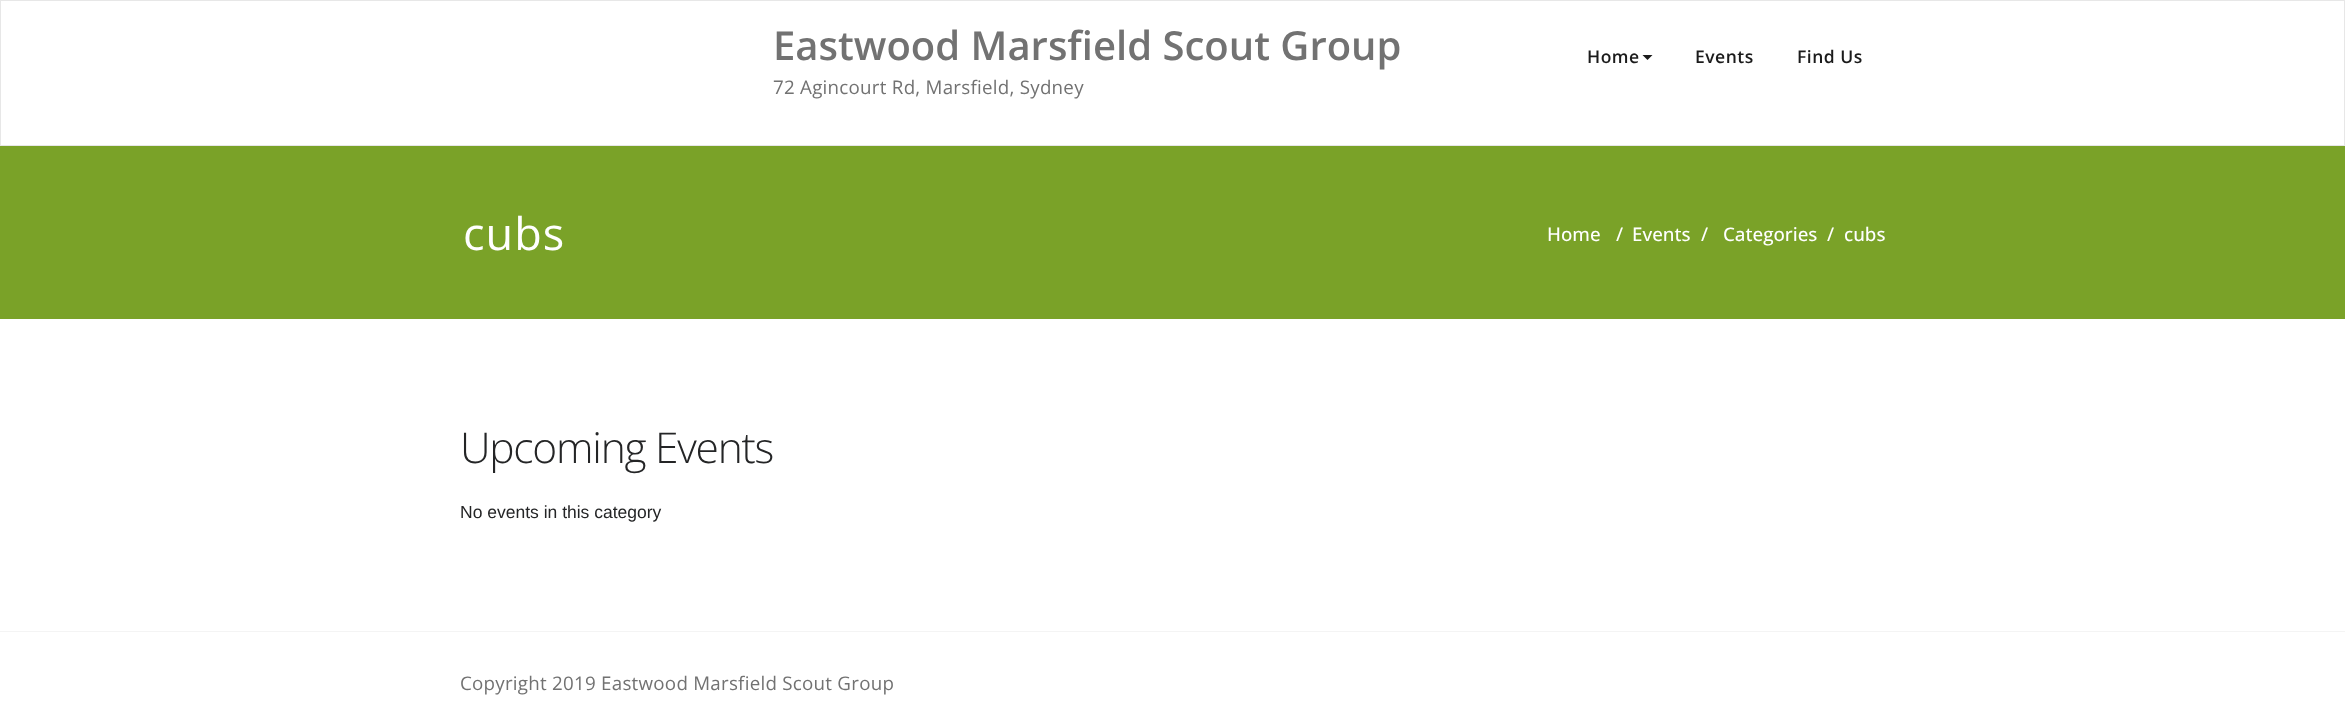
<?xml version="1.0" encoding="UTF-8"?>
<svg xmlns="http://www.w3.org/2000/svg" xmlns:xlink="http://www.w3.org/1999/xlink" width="2345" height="708">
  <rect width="100%" height="100%" fill="#ffffff" />
  <rect x="0.5" y="0.5" width="2344" height="145" fill="none" stroke="#e7e7e7" />
  <path d="M 1642.5 55 h 10 l -5 5 z" fill="#1b1b1b" />
  <rect y="146" width="2345" height="173" fill="#7aa228" />
  <rect y="631" width="2345" height="1" fill="#f4f4f4" />
  <text x="773" y="60" style="font-family: Open Sans; font-size: 40px; font-weight: 600; fill: #727272">Eastwood Marsfield Scout Group</text>
  <text x="773" y="94" style="font-family: Open Sans; font-size: 18.75px; letter-spacing: 0.25px; fill: #727272">72 Agincourt Rd, Marsfield, Sydney</text>
  <text x="1587" y="63" style="font-family: Open Sans; font-size: 17.5px; font-weight: 600; letter-spacing: 0.5px; fill: #1b1b1b">Home</text>
  <text x="1695" y="63" style="font-family: Open Sans; font-size: 17.5px; font-weight: 600; letter-spacing: 0.5px; fill: #1b1b1b">Events</text>
  <text x="1797" y="63" style="font-family: Open Sans; font-size: 17.5px; font-weight: 600; letter-spacing: 0.5px; fill: #1b1b1b">Find Us</text>
  <text x="463" y="250" style="font-family: Open Sans; font-size: 45px; letter-spacing: 1px; fill: #ffffff">cubs</text>
  <text x="1547" y="241" style="font-family: Open Sans; font-size: 18.75px; font-weight: 500; fill: #ffffff">Home</text>
  <text x="1616" y="241" style="font-family: Open Sans; font-size: 18.75px; font-weight: 500; fill: #ffffff">/</text>
  <text x="1632" y="241" style="font-family: Open Sans; font-size: 18.75px; font-weight: 500; fill: #ffffff">Events</text>
  <text x="1701" y="241" style="font-family: Open Sans; font-size: 18.75px; font-weight: 500; fill: #ffffff">/</text>
  <text x="1723" y="241" style="font-family: Open Sans; font-size: 18.75px; font-weight: 500; fill: #ffffff">Categories</text>
  <text x="1827" y="241" style="font-family: Open Sans; font-size: 18.75px; font-weight: 500; fill: #ffffff">/</text>
  <text x="1844" y="241" style="font-family: Open Sans; font-size: 18.75px; font-weight: 500; fill: #ffffff">cubs</text>
  <text x="460" y="463" style="font-family: Open Sans; font-size: 42.5px; font-weight: 300; letter-spacing: -1.25px; fill: #242526">Upcoming Events</text>
  <text x="460" y="518" style="font-family: Liberation Sans; font-size: 17.5px; fill: #242526">No events in this category</text>
  <text x="460" y="690" style="font-family: Open Sans; font-size: 18.75px; letter-spacing: 0.25px; fill: #727272">Copyright 2019 Eastwood Marsfield Scout Group</text>
</svg>
